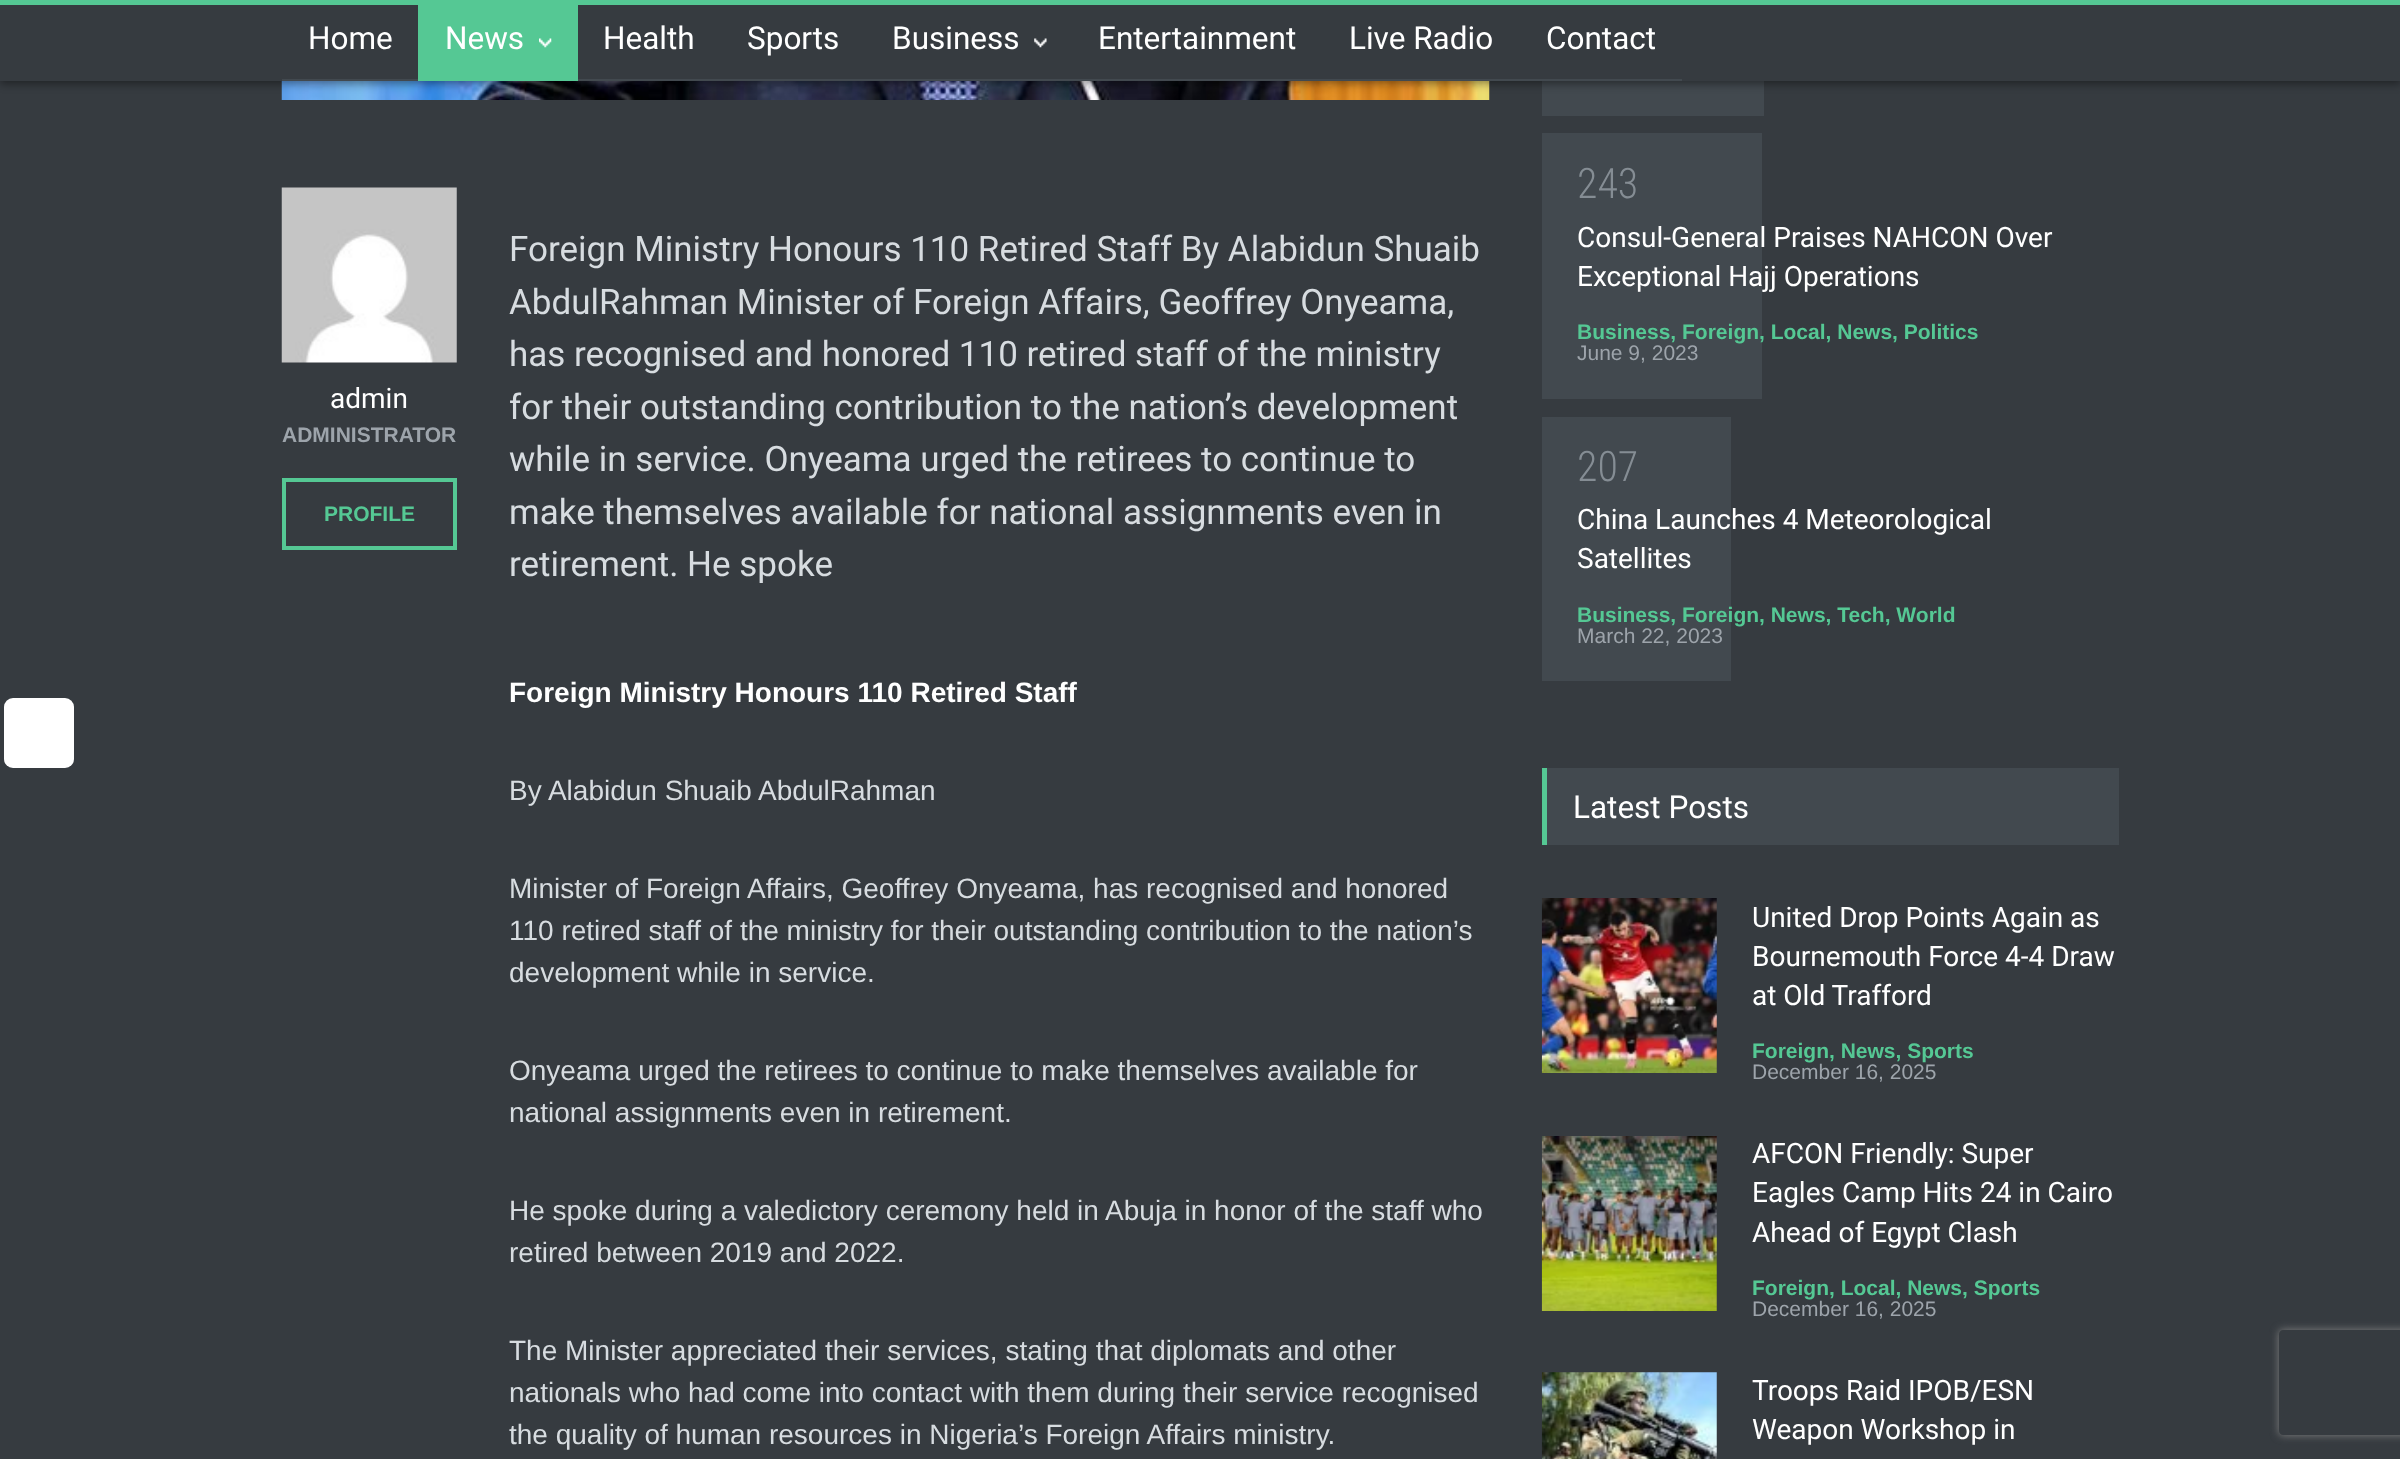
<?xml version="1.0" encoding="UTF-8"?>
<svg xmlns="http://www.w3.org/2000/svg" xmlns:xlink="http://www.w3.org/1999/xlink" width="2400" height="1459">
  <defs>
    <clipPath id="clip1"><path d="M 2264 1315 h 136 v 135 h -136 z m 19 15 h 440 c 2 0 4 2 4 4 v 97 c 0 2 -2 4 -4 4 h -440 c -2 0 -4 -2 -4 -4 v -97 c 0 -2 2 -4 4 -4 z" clip-rule="evenodd" /></clipPath>
  </defs>
  <rect width="100%" height="100%" fill="#363b40" />
  <rect x="4" y="698" width="70" height="70" rx="9" fill="#ffffff" />
  <image x="281" y="81" width="1209" height="19" xlink:href="image3.png" />
  <rect x="1542" y="81" width="222" height="35" fill="#42494f" />
  <rect y="4" width="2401" height="80" fill="#000000" fill-opacity="0.4" filter="blur(4.5px)" />
  <rect y="5" width="2400" height="76" fill="#363b40" />
  <rect width="2400" height="5" fill="#55c894" />
  <rect x="282" y="79" width="136" height="2" fill="#42494f" />
  <rect x="418" y="5" width="160" height="76" fill="#55c894" />
  <image x="539" y="38" width="13" height="10" xlink:href="image1.png" />
  <rect x="578" y="79" width="1104" height="2" fill="#42494f" />
  <image x="1034" y="38" width="13" height="10" xlink:href="image2.png" />
  <image x="281" y="187" width="176" height="176" xlink:href="image4.png" />
  <rect x="284" y="480" width="171" height="68" fill="none" stroke="#55c894" stroke-width="4" />
  <rect x="1542" y="133" width="220" height="266" fill="#42494f" />
  <rect x="1542" y="417" width="189" height="264" fill="#42494f" />
  <rect x="1547" y="768" width="572" height="77" fill="#42494f" />
  <rect x="1542" y="768" width="5" height="77" fill="#55c894" />
  <image x="1541" y="898" width="176" height="175" xlink:href="image5.png" />
  <image x="1541" y="1136" width="176" height="175" xlink:href="image6.png" />
  <image x="1541" y="1372" width="176" height="87" xlink:href="image7.png" />
  <g clip-path="url(#clip1)">
    <rect x="2279" y="1330" width="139" height="105" rx="4" fill="#808080" filter="blur(4.5px)" />
  </g>
  <text x="308" y="49" style="font-family: Roboto; font-size: 31.5px; fill: #ffffff">Home</text>
  <text x="445" y="49" style="font-family: Roboto; font-size: 31.5px; fill: #ffffff">News</text>
  <text x="603" y="49" style="font-family: Roboto; font-size: 31.5px; fill: #ffffff">Health</text>
  <text x="747" y="49" style="font-family: Roboto; font-size: 31.5px; fill: #ffffff">Sports</text>
  <text x="892" y="49" style="font-family: Roboto; font-size: 31.5px; fill: #ffffff">Business</text>
  <text x="1098" y="49" style="font-family: Roboto; font-size: 31.5px; fill: #ffffff">Entertainment</text>
  <text x="1349" y="49" style="font-family: Roboto; font-size: 31.5px; fill: #ffffff">Live Radio</text>
  <text x="1546" y="49" style="font-family: Roboto; font-size: 31.5px; fill: #ffffff">Contact</text>
  <text x="330" y="408" style="font-family: Roboto; font-size: 28px; fill: #ffffff">admin</text>
  <text x="282" y="442" style="font-family: Liberation Sans; font-size: 21px; font-weight: bold; fill: #9da4ab">ADMINISTRATOR</text>
  <text x="324" y="521" style="font-family: Liberation Sans; font-size: 21px; font-weight: bold; fill: #55c894">PROFILE</text>
  <text x="509" y="261" style="font-family: Roboto; font-size: 35px; fill: #d7dce0">Foreign Ministry Honours 110 Retired Staff By Alabidun Shuaib</text>
  <text x="509" y="314" style="font-family: Roboto; font-size: 35px; fill: #d7dce0">AbdulRahman Minister of Foreign Affairs, Geoffrey Onyeama,</text>
  <text x="509" y="366" style="font-family: Roboto; font-size: 35px; fill: #d7dce0">has recognised and honored 110 retired staff of the ministry</text>
  <text x="509" y="419" style="font-family: Roboto; font-size: 35px; fill: #d7dce0">for their outstanding contribution to the nation’s development</text>
  <text x="509" y="471" style="font-family: Roboto; font-size: 35px; fill: #d7dce0">while in service. Onyeama urged the retirees to continue to</text>
  <text x="509" y="524" style="font-family: Roboto; font-size: 35px; fill: #d7dce0">make themselves available for national assignments even in</text>
  <text x="509" y="576" style="font-family: Roboto; font-size: 35px; fill: #d7dce0">retirement. He spoke</text>
  <text x="509" y="702" style="font-family: Liberation Sans; font-size: 28px; font-weight: bold; fill: #ffffff">Foreign Ministry Honours 110 Retired Staff</text>
  <text x="509" y="800" style="font-family: Liberation Sans; font-size: 28px; fill: #d7dce0">By Alabidun Shuaib AbdulRahman</text>
  <text x="509" y="898" style="font-family: Liberation Sans; font-size: 28px; fill: #d7dce0">Minister of Foreign Affairs, Geoffrey Onyeama, has recognised and honored</text>
  <text x="509" y="940" style="font-family: Liberation Sans; font-size: 28px; fill: #d7dce0">110 retired staff of the ministry for their outstanding contribution to the nation’s</text>
  <text x="509" y="982" style="font-family: Liberation Sans; font-size: 28px; fill: #d7dce0">development while in service.</text>
  <text x="509" y="1080" style="font-family: Liberation Sans; font-size: 28px; fill: #d7dce0">Onyeama urged the retirees to continue to make themselves available for</text>
  <text x="509" y="1122" style="font-family: Liberation Sans; font-size: 28px; fill: #d7dce0">national assignments even in retirement.</text>
  <text x="509" y="1220" style="font-family: Liberation Sans; font-size: 28px; fill: #d7dce0">He spoke during a valedictory ceremony held in Abuja in honor of the staff who</text>
  <text x="509" y="1262" style="font-family: Liberation Sans; font-size: 28px; fill: #d7dce0">retired between 2019 and 2022.</text>
  <text x="509" y="1360" style="font-family: Liberation Sans; font-size: 28px; fill: #d7dce0">The Minister appreciated their services, stating that diplomats and other</text>
  <text x="509" y="1402" style="font-family: Liberation Sans; font-size: 28px; fill: #d7dce0">nationals who had come into contact with them during their service recognised</text>
  <text x="509" y="1444" style="font-family: Liberation Sans; font-size: 28px; fill: #d7dce0">the quality of human resources in Nigeria’s Foreign Affairs ministry.</text>
  <text x="1577" y="198" style="font-family: Roboto Condensed; font-size: 42px; font-weight: 300; fill: #858d94">243</text>
  <text x="1577" y="247" style="font-family: Roboto; font-size: 28px; fill: #ffffff">Consul-General Praises NAHCON Over</text>
  <text x="1577" y="286" style="font-family: Roboto; font-size: 28px; fill: #ffffff">Exceptional Hajj Operations</text>
  <text x="1577" y="339" style="font-family: Liberation Sans; font-size: 21px; font-weight: bold; fill: #55c894">Business, Foreign, Local, News, Politics</text>
  <text x="1577" y="360" style="font-family: Liberation Sans; font-size: 21px; fill: #9da4ab">June 9, 2023</text>
  <text x="1577" y="481" style="font-family: Roboto Condensed; font-size: 42px; font-weight: 300; fill: #858d94">207</text>
  <text x="1577" y="529" style="font-family: Roboto; font-size: 28px; fill: #ffffff">China Launches 4 Meteorological</text>
  <text x="1577" y="568" style="font-family: Roboto; font-size: 28px; fill: #ffffff">Satellites</text>
  <text x="1577" y="622" style="font-family: Liberation Sans; font-size: 21px; font-weight: bold; fill: #55c894">Business, Foreign, News, Tech, World</text>
  <text x="1577" y="643" style="font-family: Liberation Sans; font-size: 21px; fill: #9da4ab">March 22, 2023</text>
  <text x="1573" y="818" style="font-family: Roboto; font-size: 31.5px; fill: #ffffff">Latest Posts</text>
  <text x="1752" y="927" style="font-family: Roboto; font-size: 28px; fill: #ffffff">United Drop Points Again as</text>
  <text x="1752" y="966" style="font-family: Roboto; font-size: 28px; fill: #ffffff">Bournemouth Force 4-4 Draw</text>
  <text x="1752" y="1005" style="font-family: Roboto; font-size: 28px; fill: #ffffff">at Old Trafford</text>
  <text x="1752" y="1058" style="font-family: Liberation Sans; font-size: 21px; font-weight: bold; fill: #55c894">Foreign, News, Sports</text>
  <text x="1752" y="1079" style="font-family: Liberation Sans; font-size: 21px; fill: #9da4ab">December 16, 2025</text>
  <text x="1752" y="1163" style="font-family: Roboto; font-size: 28px; fill: #ffffff">AFCON Friendly: Super</text>
  <text x="1752" y="1202" style="font-family: Roboto; font-size: 28px; fill: #ffffff">Eagles Camp Hits 24 in Cairo</text>
  <text x="1752" y="1242" style="font-family: Roboto; font-size: 28px; fill: #ffffff">Ahead of Egypt Clash</text>
  <text x="1752" y="1295" style="font-family: Liberation Sans; font-size: 21px; font-weight: bold; fill: #55c894">Foreign, Local, News, Sports</text>
  <text x="1752" y="1316" style="font-family: Liberation Sans; font-size: 21px; fill: #9da4ab">December 16, 2025</text>
  <text x="1752" y="1400" style="font-family: Roboto; font-size: 28px; fill: #ffffff">Troops Raid IPOB/ESN</text>
  <text x="1752" y="1439" style="font-family: Roboto; font-size: 28px; fill: #ffffff">Weapon Workshop in</text>
</svg>
